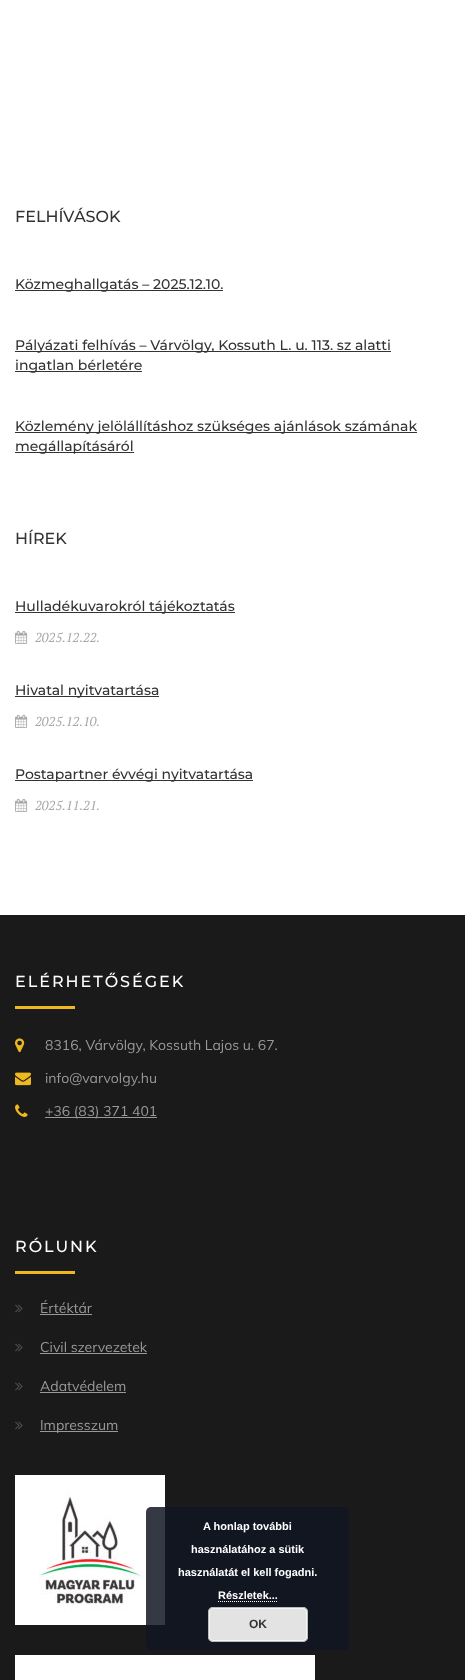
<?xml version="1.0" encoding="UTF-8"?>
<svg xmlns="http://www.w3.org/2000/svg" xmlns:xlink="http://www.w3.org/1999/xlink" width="465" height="1680">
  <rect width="100%" height="100%" fill="#ffffff" />
  <rect x="15" y="290" width="208" height="1" fill="#333333" />
  <rect x="15" y="351" width="376" height="1" fill="#333333" />
  <rect x="15" y="371" width="127" height="1" fill="#333333" />
  <rect x="15" y="432" width="402" height="1" fill="#333333" />
  <rect x="15" y="452" width="119" height="1" fill="#333333" />
  <rect x="15" y="612" width="220" height="1" fill="#333333" />
  <image x="15" y="630" width="13" height="14" xlink:href="image1.png" />
  <rect x="15" y="696" width="144" height="1" fill="#333333" />
  <image x="15" y="714" width="13" height="14" xlink:href="image1.png" />
  <rect x="15" y="780" width="238" height="1" fill="#333333" />
  <image x="15" y="798" width="13" height="14" xlink:href="image1.png" />
  <rect y="915" width="465" height="765" fill="#1a1a1a" />
  <rect x="15" y="1006" width="60" height="3" fill="#edb820" />
  <image x="15" y="1038" width="10" height="15" xlink:href="image2.png" />
  <image x="15" y="1072" width="16" height="14" xlink:href="image3.png" />
  <image x="15" y="1104" width="13" height="13" xlink:href="image4.png" />
  <rect x="45" y="1117" width="112" height="1" fill="#999999" />
  <rect x="15" y="1271" width="60" height="3" fill="#edb820" />
  <image x="15" y="1304" width="8" height="9" xlink:href="image5.png" />
  <rect x="40" y="1314" width="52" height="1" fill="#999999" />
  <image x="15" y="1343" width="8" height="9" xlink:href="image5.png" />
  <rect x="40" y="1353" width="107" height="1" fill="#999999" />
  <image x="15" y="1382" width="8" height="9" xlink:href="image5.png" />
  <rect x="40" y="1392" width="86" height="1" fill="#999999" />
  <image x="15" y="1421" width="8" height="9" xlink:href="image5.png" />
  <rect x="40" y="1431" width="78" height="1" fill="#999999" />
  <image x="15" y="1475" width="150" height="150" xlink:href="image6.png" />
  <rect x="15" y="1655" width="300" height="25" fill="#ffffff" />
  <rect x="146" y="1507" width="203" height="143" rx="5" fill="#121623" fill-opacity="0.85" />
  <path d="M 218 1601.5 h 59" fill="none" stroke="#ffffff" stroke-dasharray="1 1" />
  <rect x="208" y="1607" width="100" height="35" rx="5" fill="#e3e3e3" />
  <rect x="209.5" y="1608.5" width="97" height="32" rx="3.5" fill="none" stroke="#f6f6f6" />
  <rect x="208.5" y="1607.5" width="99" height="34" rx="4.5" fill="none" stroke="#bbbbbb" />
  <text x="15" y="222" style="font-family: Montserrat; font-size: 16px; font-weight: 100; fill: #333333">FELHÍVÁSOK</text>
  <text x="15" y="289" style="font-family: Montserrat; font-size: 14px; font-weight: 100; fill: #333333">Közmeghallgatás – 2025.12.10.</text>
  <text x="15" y="350" style="font-family: Montserrat; font-size: 14px; font-weight: 100; fill: #333333">Pályázati felhívás – Várvölgy, Kossuth L. u. 113. sz alatti</text>
  <text x="15" y="370" style="font-family: Montserrat; font-size: 14px; font-weight: 100; fill: #333333">ingatlan bérletére</text>
  <text x="15" y="431" style="font-family: Montserrat; font-size: 14px; font-weight: 100; fill: #333333">Közlemény jelölállításhoz szükséges ajánlások számának</text>
  <text x="15" y="451" style="font-family: Montserrat; font-size: 14px; font-weight: 100; fill: #333333">megállapításáról</text>
  <text x="15" y="544" style="font-family: Montserrat; font-size: 16px; font-weight: 100; fill: #333333">HÍREK</text>
  <text x="15" y="611" style="font-family: Montserrat; font-size: 14px; font-weight: 100; fill: #333333">Hulladékuvarokról tájékoztatás</text>
  <text x="35" y="642" style="font-family: PT Serif; font-size: 13px; font-style: italic; fill: #a8a8a8">2025.12.22.</text>
  <text x="15" y="695" style="font-family: Montserrat; font-size: 14px; font-weight: 100; fill: #333333">Hivatal nyitvatartása</text>
  <text x="35" y="726" style="font-family: PT Serif; font-size: 13px; font-style: italic; fill: #a8a8a8">2025.12.10.</text>
  <text x="15" y="779" style="font-family: Montserrat; font-size: 14px; font-weight: 100; fill: #333333">Postapartner évvégi nyitvatartása</text>
  <text x="35" y="810" style="font-family: PT Serif; font-size: 13px; font-style: italic; fill: #a8a8a8">2025.11.21.</text>
  <text x="15" y="987" style="font-family: Montserrat; font-size: 16px; font-weight: 100; letter-spacing: 2px; fill: #ffffff">ELÉRHETŐSÉGEK</text>
  <text x="45" y="1050" style="font-family: Muli; font-size: 14px; fill: #999999">8316, Várvölgy, Kossuth Lajos u. 67.</text>
  <text x="45" y="1083" style="font-family: Muli; font-size: 14px; fill: #999999">info@varvolgy.hu</text>
  <text x="45" y="1116" style="font-family: Muli; font-size: 14px; fill: #999999">+36 (83) 371 401</text>
  <text x="15" y="1252" style="font-family: Montserrat; font-size: 16px; font-weight: 100; letter-spacing: 2px; fill: #ffffff">RÓLUNK</text>
  <text x="40" y="1313" style="font-family: Muli; font-size: 14px; fill: #999999">Értéktár</text>
  <text x="40" y="1352" style="font-family: Muli; font-size: 14px; fill: #999999">Civil szervezetek</text>
  <text x="40" y="1391" style="font-family: Muli; font-size: 14px; fill: #999999">Adatvédelem</text>
  <text x="40" y="1430" style="font-family: Muli; font-size: 14px; fill: #999999">Impresszum</text>
  <text x="203" y="1530" style="font-family: Liberation Sans; font-size: 11px; font-weight: bold; fill: #ffffff">A honlap további</text>
  <text x="191" y="1553" style="font-family: Liberation Sans; font-size: 11px; font-weight: bold; fill: #ffffff">használatához a sütik</text>
  <text x="178" y="1576" style="font-family: Liberation Sans; font-size: 11px; font-weight: bold; fill: #ffffff">használatát el kell fogadni.</text>
  <text x="218" y="1599" style="font-family: Liberation Sans; font-size: 11px; font-weight: bold; fill: #ffffff">Részletek...</text>
  <text x="249" y="1628" style="font-family: Liberation Sans; font-size: 12px; font-weight: bold; fill: #333333">OK</text>
</svg>
